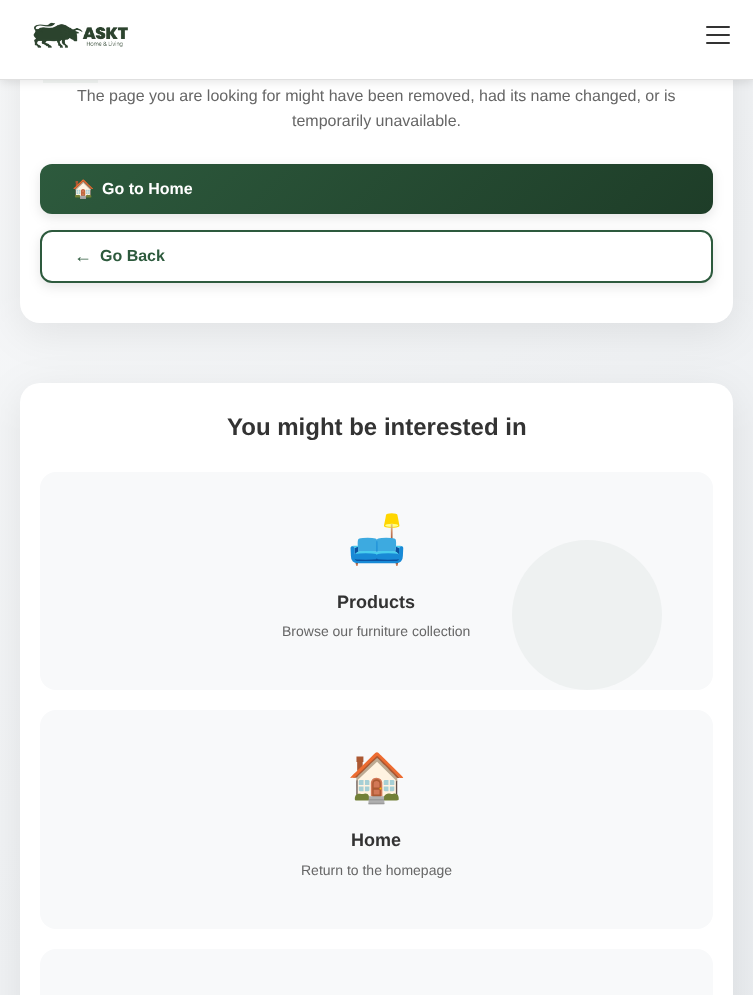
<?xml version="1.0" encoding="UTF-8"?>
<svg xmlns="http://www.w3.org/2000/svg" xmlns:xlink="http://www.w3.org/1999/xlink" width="753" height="995">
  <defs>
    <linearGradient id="g1" gradientUnits="userSpaceOnUse" x1="-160" y1="3.3" x2="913" y2="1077"><stop offset="0" stop-color="#f8f9fa" /><stop offset="1" stop-color="#e9ecef" /></linearGradient>
    <linearGradient id="g2" gradientUnits="userSpaceOnUse" x1="196" y1="8" x2="557" y2="370"><stop offset="0" stop-color="#2d5a3d" /><stop offset="1" stop-color="#1e3d28" /></linearGradient>
  </defs>
  <rect width="100%" height="100%" fill="#ffffff" />
  <rect y="80" width="753" height="915" fill="url(#g1)" />
  <rect x="20" y="-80" width="713" height="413" rx="20" fill="#000000" fill-opacity="0.08" filter="blur(20px)" />
  <rect x="20" y="-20" width="713" height="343" rx="20" fill="#ffffff" />
  <rect x="43" y="80" width="55" height="3" fill="#2d5a3d" fill-opacity="0.05" />
  <rect y="2" width="753" height="80" fill="#000000" fill-opacity="0.1" filter="blur(5px)" />
  <rect width="753" height="79" fill="#ffffff" />
  <rect y="79" width="753" height="1" fill="#e0e0e0" />
  <image x="33" y="22" width="95" height="26" xlink:href="image1.png" />
  <rect x="706" y="26" width="24" height="2" rx="1" fill="#333333" />
  <rect x="706" y="34" width="24" height="2" rx="1" fill="#333333" />
  <rect x="706" y="42" width="24" height="2" rx="1" fill="#333333" />
  <rect x="20" y="393" width="713" height="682" rx="20" fill="#000000" fill-opacity="0.08" filter="blur(20px)" />
  <rect x="20" y="383" width="713" height="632" rx="20" fill="#ffffff" />
  <rect x="40" y="472" width="673" height="218" rx="16" fill="#f8f9fa" />
  <circle cx="587" cy="615" r="75" fill="#eef1f1" />
  <rect x="40" y="168" width="673" height="50" rx="12" fill="#000000" fill-opacity="0.1" filter="blur(6px)" />
  <rect x="40" y="164" width="673" height="50" rx="12" fill="url(#g2)" />
  <rect x="40" y="234" width="673" height="53" rx="12" fill="#000000" fill-opacity="0.1" filter="blur(6px)" />
  <rect x="41" y="231" width="671" height="51" rx="11" fill="#ffffff" stroke="#2d5a3d" stroke-width="2" />
  <rect x="40" y="710" width="673" height="219" rx="16" fill="#f8f9fa" />
  <rect x="40" y="949" width="673" height="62" rx="16" fill="#f8f9fa" />
  <text x="77" y="101" style="font-family: Liberation Sans; font-size: 16px; fill: #666666">The page you are looking for might have been removed, had its name changed, or is</text>
  <text x="292" y="126" style="font-family: Liberation Sans; font-size: 16px; fill: #666666">temporarily unavailable.</text>
  <text x="72" y="195" style="font-family: Noto Color Emoji; font-size: 18px; font-weight: bold; fill: #ffffff">🏠</text>
  <text x="102" y="194" style="font-family: Liberation Sans; font-size: 16px; font-weight: bold; fill: #ffffff">Go to Home</text>
  <text x="74" y="262" style="font-family: Liberation Sans; font-size: 18px; font-weight: bold; fill: #2d5a3d">←</text>
  <text x="100" y="261" style="font-family: Liberation Sans; font-size: 16px; font-weight: bold; fill: #2d5a3d">Go Back</text>
  <text x="227" y="435" style="font-family: Liberation Sans; font-size: 24px; font-weight: bold; fill: #333333">You might be interested in</text>
  <text x="347" y="556" style="font-family: Noto Color Emoji; font-size: 48px; fill: #333333">🛋️</text>
  <text x="337" y="608" style="font-family: Liberation Sans; font-size: 18px; font-weight: bold; fill: #333333">Products</text>
  <text x="282" y="636" style="font-family: Liberation Sans; font-size: 14px; fill: #666666">Browse our furniture collection</text>
  <text x="347" y="794" style="font-family: Noto Color Emoji; font-size: 48px; fill: #333333">🏠</text>
  <text x="351" y="846" style="font-family: Liberation Sans; font-size: 18px; font-weight: bold; fill: #333333">Home</text>
  <text x="301" y="875" style="font-family: Liberation Sans; font-size: 14px; fill: #666666">Return to the homepage</text>
</svg>
